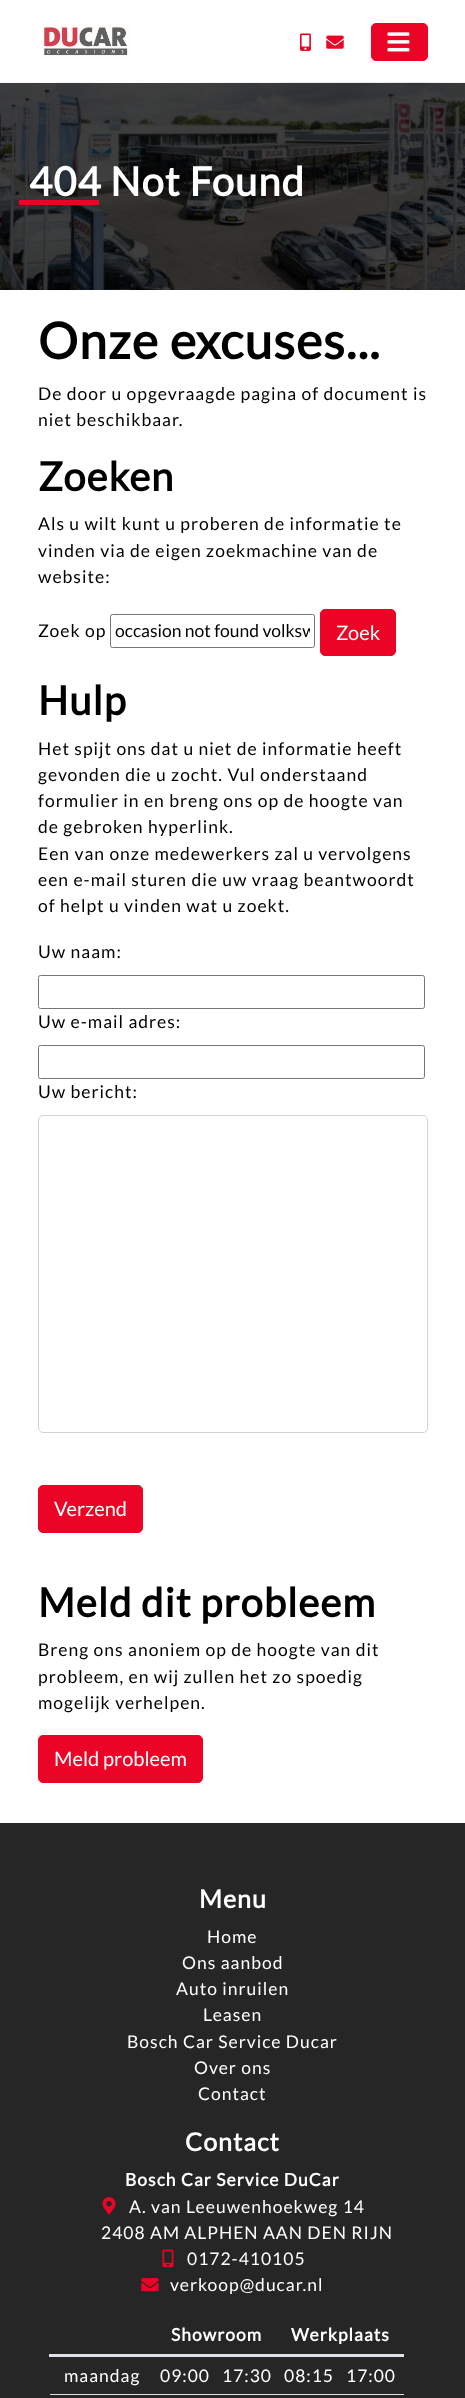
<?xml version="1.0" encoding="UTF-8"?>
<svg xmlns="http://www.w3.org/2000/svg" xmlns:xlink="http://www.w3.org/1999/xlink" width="465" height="2398">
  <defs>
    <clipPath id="clip1"><rect x="115" y="618" width="195" height="26" /></clipPath>
  </defs>
  <rect width="100%" height="100%" fill="#ffffff" />
  <image x="42" y="23" width="89" height="36" xlink:href="image1.png" />
  <image x="300" y="33" width="11" height="18" xlink:href="image2.png" />
  <image x="326" y="35" width="18" height="14" xlink:href="image3.png" />
  <rect x="371.5" y="23.5" width="56" height="37" rx="4.5" fill="#eb0425" stroke="#eb0425" />
  <image x="387" y="32" width="23" height="20" xlink:href="image4.png" />
  <image x="0" y="82" width="465" height="208" xlink:href="image5.png" />
  <rect x="19" y="200" width="80" height="5" fill="#eb0425" />
  <rect x="110.5" y="614.5" width="204" height="33" rx="2" fill="none" stroke="#767676" />
  <rect x="320.5" y="609.5" width="75" height="46" rx="4.5" fill="#eb0425" stroke="#eb0425" />
  <rect x="38.5" y="975.5" width="386" height="33" rx="2" fill="none" stroke="#767676" />
  <rect x="38.5" y="1045.5" width="386" height="33" rx="2" fill="none" stroke="#767676" />
  <rect x="38.5" y="1115.5" width="389" height="317" rx="4.5" fill="none" stroke="#ced4da" />
  <rect x="38.5" y="1485.5" width="104" height="47" rx="4.5" fill="#eb0425" stroke="#eb0425" />
  <rect x="38.5" y="1735.5" width="164" height="47" rx="4.5" fill="#eb0425" stroke="#eb0425" />
  <rect y="1823" width="465" height="575" fill="#262626" />
  <image x="102" y="2197" width="14" height="18" xlink:href="image6.png" />
  <image x="162" y="2249" width="12" height="19" xlink:href="image7.png" />
  <image x="141" y="2278" width="18" height="14" xlink:href="image8.png" />
  <rect x="49" y="2354" width="355" height="3" fill="#dee2e6" />
  <rect x="50" y="2394" width="354" height="1" fill="#dee2e6" />
  <text x="29" y="196" style="font-family: Lato; font-size: 40px; font-weight: bold; letter-spacing: 1px; fill: #ffffff">404 Not Found</text>
  <text x="38" y="359" style="font-family: Lato; font-size: 50px; font-weight: bold; letter-spacing: 1px; fill: #000000">Onze excuses...</text>
  <text x="38" y="400" style="font-family: Lato; font-size: 17.5px; letter-spacing: 1px; fill: #000000">De door u opgevraagde pagina of document is</text>
  <text x="38" y="426" style="font-family: Lato; font-size: 17.5px; letter-spacing: 1px; fill: #000000">niet beschikbaar.</text>
  <text x="38" y="491" style="font-family: Lato; font-size: 40px; font-weight: bold; letter-spacing: 1px; fill: #000000">Zoeken</text>
  <text x="38" y="530" style="font-family: Lato; font-size: 17.5px; letter-spacing: 1px; fill: #000000">Als u wilt kunt u proberen de informatie te</text>
  <text x="38" y="557" style="font-family: Lato; font-size: 17.5px; letter-spacing: 1px; fill: #000000">vinden via de eigen zoekmachine van de</text>
  <text x="38" y="583" style="font-family: Lato; font-size: 17.5px; letter-spacing: 1px; fill: #000000">website:</text>
  <text x="38" y="637" style="font-family: Lato; font-size: 17.5px; letter-spacing: 1px; fill: #000000">Zoek op</text>
  <g clip-path="url(#clip1)">
    <text x="115" y="637" style="font-family: Lato; font-size: 17.5px; fill: #000000">occasion not found volksw</text>
  </g>
  <text x="336" y="640" style="font-family: Lato; font-size: 20px; fill: #ffffff">Zoek</text>
  <text x="38" y="715" style="font-family: Lato; font-size: 40px; font-weight: bold; letter-spacing: 1px; fill: #000000">Hulp</text>
  <text x="38" y="755" style="font-family: Lato; font-size: 17.5px; letter-spacing: 1px; fill: #000000">Het spijt ons dat u niet de informatie heeft</text>
  <text x="38" y="781" style="font-family: Lato; font-size: 17.5px; letter-spacing: 1px; fill: #000000">gevonden die u zocht. Vul onderstaand</text>
  <text x="38" y="807" style="font-family: Lato; font-size: 17.5px; letter-spacing: 1px; fill: #000000">formulier in en breng ons op de hoogte van</text>
  <text x="38" y="833" style="font-family: Lato; font-size: 17.5px; letter-spacing: 1px; fill: #000000">de gebroken hyperlink.</text>
  <text x="38" y="860" style="font-family: Lato; font-size: 17.5px; letter-spacing: 1px; fill: #000000">Een van onze medewerkers zal u vervolgens</text>
  <text x="38" y="886" style="font-family: Lato; font-size: 17.5px; letter-spacing: 1px; fill: #000000">een e-mail sturen die uw vraag beantwoordt</text>
  <text x="38" y="912" style="font-family: Lato; font-size: 17.5px; letter-spacing: 1px; fill: #000000">of helpt u vinden wat u zoekt.</text>
  <text x="38" y="958" style="font-family: Lato; font-size: 17.5px; letter-spacing: 1px; fill: #000000">Uw naam:</text>
  <text x="38" y="1028" style="font-family: Lato; font-size: 17.5px; letter-spacing: 1px; fill: #000000">Uw e-mail adres:</text>
  <text x="38" y="1098" style="font-family: Lato; font-size: 17.5px; letter-spacing: 1px; fill: #000000">Uw bericht:</text>
  <text x="54" y="1516" style="font-family: Lato; font-size: 20px; fill: #ffffff">Verzend</text>
  <text x="38" y="1617" style="font-family: Lato; font-size: 40px; font-weight: bold; letter-spacing: 1px; fill: #000000">Meld dit probleem</text>
  <text x="38" y="1656" style="font-family: Lato; font-size: 17.5px; letter-spacing: 1px; fill: #000000">Breng ons anoniem op de hoogte van dit</text>
  <text x="38" y="1683" style="font-family: Lato; font-size: 17.5px; letter-spacing: 1px; fill: #000000">probleem, en wij zullen het zo spoedig</text>
  <text x="38" y="1709" style="font-family: Lato; font-size: 17.5px; letter-spacing: 1px; fill: #000000">mogelijk verhelpen.</text>
  <text x="54" y="1766" style="font-family: Lato; font-size: 20px; fill: #ffffff">Meld probleem</text>
  <text x="199" y="1908" style="font-family: Lato; font-size: 25px; font-weight: bold; letter-spacing: 1px; fill: #ffffff">Menu</text>
  <text x="207" y="1943" style="font-family: Lato; font-size: 17.5px; letter-spacing: 1px; fill: #ffffff">Home</text>
  <text x="182" y="1969" style="font-family: Lato; font-size: 17.5px; letter-spacing: 1px; fill: #ffffff">Ons aanbod</text>
  <text x="176" y="1995" style="font-family: Lato; font-size: 17.5px; letter-spacing: 1px; fill: #ffffff">Auto inruilen</text>
  <text x="203" y="2021" style="font-family: Lato; font-size: 17.5px; letter-spacing: 1px; fill: #ffffff">Leasen</text>
  <text x="127" y="2048" style="font-family: Lato; font-size: 17.5px; letter-spacing: 1px; fill: #ffffff">Bosch Car Service Ducar</text>
  <text x="194" y="2074" style="font-family: Lato; font-size: 17.5px; letter-spacing: 1px; fill: #ffffff">Over ons</text>
  <text x="198" y="2100" style="font-family: Lato; font-size: 17.5px; letter-spacing: 1px; fill: #ffffff">Contact</text>
  <text x="185" y="2151" style="font-family: Lato; font-size: 25px; font-weight: bold; letter-spacing: 1px; fill: #ffffff">Contact</text>
  <text x="125" y="2186" style="font-family: Lato; font-size: 17.5px; font-weight: bold; letter-spacing: 1px; fill: #ffffff">Bosch Car Service DuCar</text>
  <text x="129" y="2213" style="font-family: Lato; font-size: 17.5px; letter-spacing: 1px; fill: #ffffff">A. van Leeuwenhoekweg 14</text>
  <text x="101" y="2239" style="font-family: Lato; font-size: 17.5px; letter-spacing: 1px; fill: #ffffff">2408 AM ALPHEN AAN DEN RIJN</text>
  <text x="187" y="2265" style="font-family: Lato; font-size: 17.5px; letter-spacing: 1px; fill: #ffffff">0172-410105</text>
  <text x="170" y="2291" style="font-family: Lato; font-size: 17.5px; letter-spacing: 1px; fill: #ffffff">verkoop@ducar.nl</text>
  <text x="171" y="2341" style="font-family: Lato; font-size: 17.5px; font-weight: bold; letter-spacing: 1px; fill: #ffffff">Showroom</text>
  <text x="291" y="2341" style="font-family: Lato; font-size: 17.5px; font-weight: bold; letter-spacing: 1px; fill: #ffffff">Werkplaats</text>
  <text x="64" y="2382" style="font-family: Lato; font-size: 17.5px; letter-spacing: 1px; fill: #ffffff">maandag</text>
  <text x="160" y="2382" style="font-family: Lato; font-size: 17.5px; letter-spacing: 1px; fill: #ffffff">09:00</text>
  <text x="222" y="2382" style="font-family: Lato; font-size: 17.5px; letter-spacing: 1px; fill: #ffffff">17:30</text>
  <text x="284" y="2382" style="font-family: Lato; font-size: 17.5px; letter-spacing: 1px; fill: #ffffff">08:15</text>
  <text x="346" y="2382" style="font-family: Lato; font-size: 17.5px; letter-spacing: 1px; fill: #ffffff">17:00</text>
</svg>
